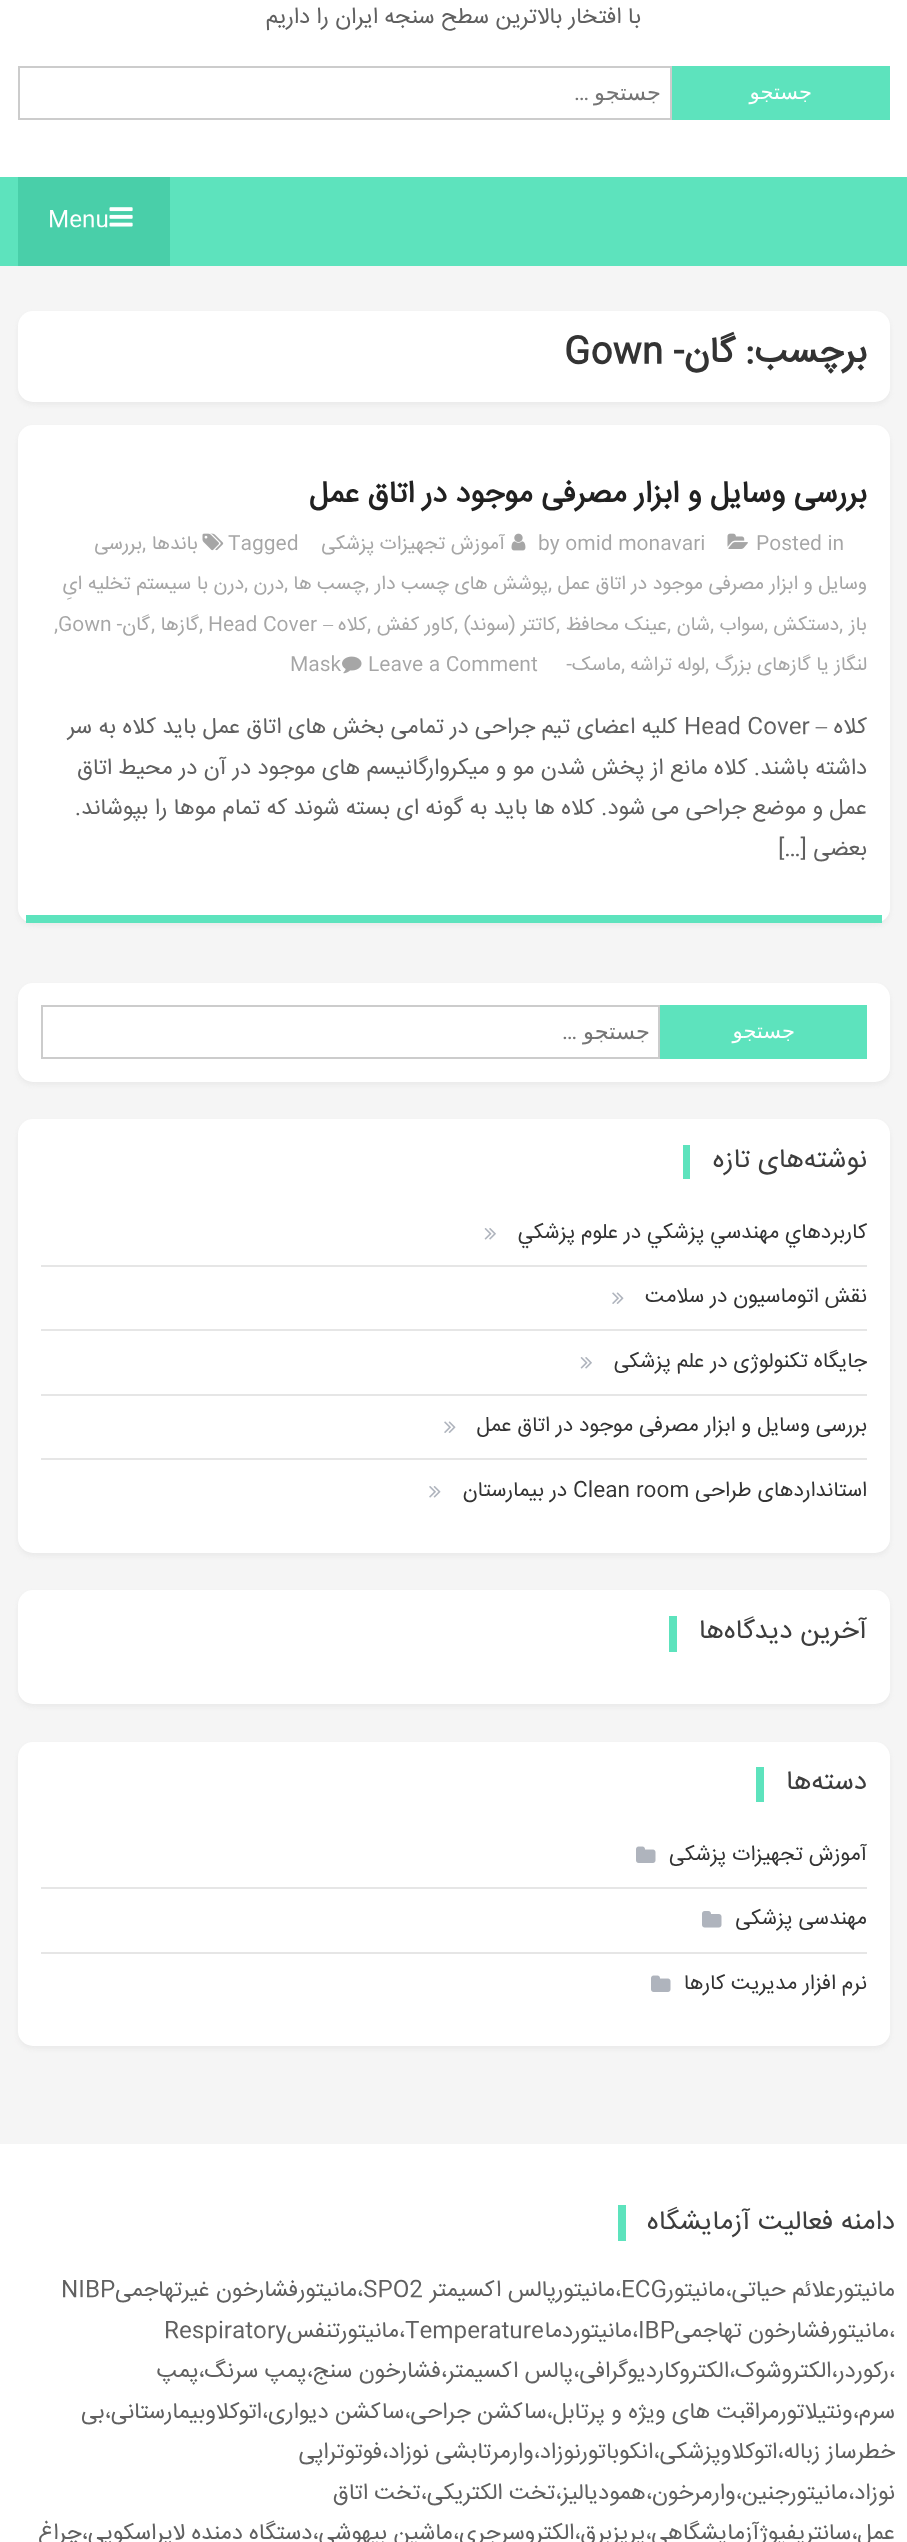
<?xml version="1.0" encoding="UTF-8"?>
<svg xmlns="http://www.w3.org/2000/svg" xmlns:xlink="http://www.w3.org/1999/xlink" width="907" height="2542">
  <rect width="100%" height="100%" fill="#f5f5f5" />
  <rect width="907" height="177" fill="#ffffff" />
  <rect x="672" y="66" width="218" height="54" fill="#5de3bd" />
  <rect x="19" y="67" width="652" height="52" fill="none" stroke="#cccccc" stroke-width="2" />
  <rect y="177" width="907" height="89" fill="#5de3bd" />
  <rect x="18" y="177" width="152" height="89" fill="#49cfa9" />
  <image x="109" y="207" width="24" height="20" xlink:href="image1.png" />
  <rect x="18" y="314" width="872" height="91" rx="15" fill="#eaeaea" filter="blur(2px)" />
  <rect x="18" y="311" width="872" height="91" rx="15" fill="#ffffff" />
  <rect x="18" y="428" width="872" height="498" rx="15" fill="#eaeaea" filter="blur(2px)" />
  <rect x="18" y="425" width="872" height="498" rx="15" fill="#ffffff" />
  <rect x="26" y="915" width="856" height="8" fill="#5de3bd" />
  <image x="727" y="533" width="21" height="16" xlink:href="image2.png" />
  <image x="511" y="533" width="15" height="18" xlink:href="image3.png" />
  <image x="202" y="533" width="22" height="18" xlink:href="image4.png" />
  <image x="342" y="656" width="20" height="18" xlink:href="image5.png" />
  <rect x="18" y="986" width="872" height="99" rx="15" fill="#eaeaea" filter="blur(2px)" />
  <rect x="18" y="983" width="872" height="99" rx="15" fill="#ffffff" />
  <rect x="660" y="1005" width="207" height="54" fill="#5de3bd" />
  <rect x="42" y="1006" width="617" height="52" fill="none" stroke="#cccccc" stroke-width="2" />
  <rect x="18" y="1122" width="872" height="434" rx="15" fill="#eaeaea" filter="blur(2px)" />
  <rect x="18" y="1119" width="872" height="434" rx="15" fill="#ffffff" />
  <rect x="683" y="1145" width="7" height="34" fill="#5de3bd" />
  <rect x="41" y="1265" width="826" height="2" fill="#e6e6e6" />
  <image x="484" y="1228" width="12" height="12" xlink:href="image6.png" />
  <rect x="41" y="1329" width="826" height="2" fill="#e6e6e6" />
  <image x="612" y="1292" width="12" height="12" xlink:href="image7.png" />
  <rect x="41" y="1394" width="826" height="2" fill="#e6e6e6" />
  <image x="580" y="1357" width="12" height="12" xlink:href="image6.png" />
  <rect x="41" y="1458" width="826" height="2" fill="#e6e6e6" />
  <image x="444" y="1421" width="12" height="12" xlink:href="image7.png" />
  <image x="429" y="1486" width="12" height="12" xlink:href="image8.png" />
  <rect x="18" y="1593" width="872" height="114" rx="15" fill="#eaeaea" filter="blur(2px)" />
  <rect x="18" y="1590" width="872" height="114" rx="15" fill="#ffffff" />
  <rect x="669" y="1616" width="8" height="36" fill="#5de3bd" />
  <rect x="18" y="1745" width="872" height="304" rx="15" fill="#eaeaea" filter="blur(2px)" />
  <rect x="18" y="1742" width="872" height="304" rx="15" fill="#ffffff" />
  <rect x="756" y="1767" width="8" height="35" fill="#5de3bd" />
  <rect x="41" y="1887" width="826" height="2" fill="#e6e6e6" />
  <image x="636" y="1846" width="20" height="17" xlink:href="image9.png" />
  <rect x="41" y="1952" width="826" height="2" fill="#e6e6e6" />
  <image x="702" y="1911" width="20" height="17" xlink:href="image10.png" />
  <image x="651" y="1975" width="20" height="17" xlink:href="image9.png" />
  <rect y="2144" width="907" height="398" fill="#ffffff" />
  <rect x="618" y="2205" width="8" height="36" fill="#5de3bd" />
  <text x="641" y="23" style="font-family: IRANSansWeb; font-size: 22.5px; direction: rtl; fill: #606060">با افتخار بالاترین سطح سنجه ایران را داریم</text>
  <text x="812" y="99" style="font-family: DejaVu Sans; font-size: 21px; direction: rtl; fill: #ffffff">جستجو</text>
  <text x="661" y="100" style="font-family: DejaVu Sans; font-size: 22.5px; direction: rtl; fill: #757575">جستجو</text>
  <text x="589" y="100" style="font-family: Roboto; font-size: 22.5px; direction: rtl; fill: #757575">…</text>
  <text x="48" y="226" style="font-family: IRANSansWeb; font-size: 22.5px; fill: #ffffff">Menu</text>
  <text x="867" y="362" style="font-family: IRANSansWeb; font-size: 36px; font-weight: bold; direction: rtl; fill: #333333">برچسب:</text>
  <text x="735" y="362" style="font-family: IRANSansWeb; font-size: 36px; font-weight: bold; direction: rtl; fill: #333333">گان-</text>
  <text x="564" y="362" style="font-family: IRANSansWeb; font-size: 36px; font-weight: bold; fill: #333333">Gown</text>
  <text x="867" y="502" style="font-family: IRANSansWeb; font-size: 30px; font-weight: bold; direction: rtl; fill: #212121">بررسی وسایل و ابزار مصرفی موجود در اتاق عمل</text>
  <text x="756" y="549" style="font-family: IRANSansWeb; font-size: 19.5px; fill: #a6a6a6">Posted in</text>
  <text x="538" y="549" style="font-family: IRANSansWeb; font-size: 19.5px; fill: #a6a6a6">by omid monavari</text>
  <text x="505" y="549" style="font-family: IRANSansWeb; font-size: 19.5px; direction: rtl; fill: #a6a6a6">آموزش تجهیزات پزشکی</text>
  <text x="228" y="549" style="font-family: IRANSansWeb; font-size: 19.5px; fill: #a6a6a6">Tagged</text>
  <text x="198" y="549" style="font-family: IRANSansWeb; font-size: 19.5px; direction: rtl; fill: #a6a6a6">باندها</text>
  <text x="142" y="549" style="font-family: IRANSansWeb; font-size: 19.5px; fill: #a6a6a6">,</text>
  <text x="142" y="549" style="font-family: IRANSansWeb; font-size: 19.5px; direction: rtl; fill: #a6a6a6">بررسی</text>
  <text x="867" y="589" style="font-family: IRANSansWeb; font-size: 19.5px; direction: rtl; fill: #a6a6a6">وسایل و ابزار مصرفی موجود در اتاق عمل</text>
  <text x="548" y="589" style="font-family: IRANSansWeb; font-size: 19.5px; fill: #a6a6a6">,</text>
  <text x="548" y="589" style="font-family: IRANSansWeb; font-size: 19.5px; direction: rtl; fill: #a6a6a6">پوشش های چسب دار</text>
  <text x="365" y="589" style="font-family: IRANSansWeb; font-size: 19.5px; fill: #a6a6a6">,</text>
  <text x="365" y="589" style="font-family: IRANSansWeb; font-size: 19.5px; direction: rtl; fill: #a6a6a6">چسب ها</text>
  <text x="284" y="589" style="font-family: IRANSansWeb; font-size: 19.5px; fill: #a6a6a6">,</text>
  <text x="284" y="589" style="font-family: IRANSansWeb; font-size: 19.5px; direction: rtl; fill: #a6a6a6">درن</text>
  <text x="244" y="589" style="font-family: IRANSansWeb; font-size: 19.5px; fill: #a6a6a6">,</text>
  <text x="244" y="589" style="font-family: IRANSansWeb; font-size: 19.5px; direction: rtl; fill: #a6a6a6">درن با سیستم تخلیه ایِ</text>
  <text x="867" y="630" style="font-family: IRANSansWeb; font-size: 19.5px; direction: rtl; fill: #a6a6a6">باز</text>
  <text x="839" y="630" style="font-family: IRANSansWeb; font-size: 19.5px; direction: rtl; fill: #a6a6a6">دستکش</text>
  <text x="764" y="630" style="font-family: IRANSansWeb; font-size: 19.5px; direction: rtl; fill: #a6a6a6">سواب</text>
  <text x="710" y="630" style="font-family: IRANSansWeb; font-size: 19.5px; direction: rtl; fill: #a6a6a6">شان</text>
  <text x="667" y="630" style="font-family: IRANSansWeb; font-size: 19.5px; direction: rtl; fill: #a6a6a6">عینک محافظ</text>
  <text x="556" y="630" style="font-family: IRANSansWeb; font-size: 19.5px; direction: rtl; fill: #a6a6a6">کاتتر (سوند)</text>
  <text x="454" y="630" style="font-family: IRANSansWeb; font-size: 19.5px; direction: rtl; fill: #a6a6a6">کاور کفش</text>
  <text x="333" y="630" style="font-family: Liberation Serif; font-size: 19.5px; direction: rtl; fill: #a6a6a6">–</text>
  <text x="208" y="630" style="font-family: IRANSansWeb; font-size: 19.5px; fill: #a6a6a6">Head Cover</text>
  <text x="199" y="630" style="font-family: IRANSansWeb; font-size: 19.5px; direction: rtl; fill: #a6a6a6">گازها</text>
  <text x="58" y="630" style="font-family: IRANSansWeb; font-size: 19.5px; fill: #a6a6a6">Gown</text>
  <text x="839" y="630" style="font-family: IRANSansWeb; font-size: 19.5px; fill: #a6a6a6">,</text>
  <text x="764" y="630" style="font-family: IRANSansWeb; font-size: 19.5px; fill: #a6a6a6">,</text>
  <text x="710" y="630" style="font-family: IRANSansWeb; font-size: 19.5px; fill: #a6a6a6">,</text>
  <text x="667" y="630" style="font-family: IRANSansWeb; font-size: 19.5px; fill: #a6a6a6">,</text>
  <text x="556" y="630" style="font-family: IRANSansWeb; font-size: 19.5px; fill: #a6a6a6">,</text>
  <text x="454" y="630" style="font-family: IRANSansWeb; font-size: 19.5px; fill: #a6a6a6">,</text>
  <text x="367" y="630" style="font-family: IRANSansWeb; font-size: 19.5px; fill: #a6a6a6">,</text>
  <text x="367" y="630" style="font-family: IRANSansWeb; font-size: 19.5px; direction: rtl; fill: #a6a6a6">کلاه</text>
  <text x="199" y="630" style="font-family: IRANSansWeb; font-size: 19.5px; fill: #a6a6a6">,</text>
  <text x="151" y="630" style="font-family: IRANSansWeb; font-size: 19.5px; fill: #a6a6a6">,</text>
  <text x="150" y="630" style="font-family: IRANSansWeb; font-size: 19.5px; direction: rtl; fill: #a6a6a6">گان-</text>
  <text x="54" y="630" style="font-family: IRANSansWeb; font-size: 19.5px; fill: #a6a6a6">,</text>
  <text x="867" y="670" style="font-family: IRANSansWeb; font-size: 19.5px; direction: rtl; fill: #a6a6a6">لنگاز یا گازهای بزرگ</text>
  <text x="705" y="670" style="font-family: IRANSansWeb; font-size: 19.5px; fill: #a6a6a6">,</text>
  <text x="705" y="670" style="font-family: IRANSansWeb; font-size: 19.5px; direction: rtl; fill: #a6a6a6">لوله تراشه</text>
  <text x="621" y="670" style="font-family: IRANSansWeb; font-size: 19.5px; fill: #a6a6a6">,</text>
  <text x="621" y="670" style="font-family: IRANSansWeb; font-size: 19.5px; direction: rtl; fill: #a6a6a6">ماسک-</text>
  <text x="368" y="670" style="font-family: IRANSansWeb; font-size: 19.5px; fill: #a6a6a6">Leave a Comment</text>
  <text x="290" y="670" style="font-family: IRANSansWeb; font-size: 19.5px; fill: #a6a6a6">Mask</text>
  <text x="867" y="733" style="font-family: IRANSansWeb; font-size: 22.5px; direction: rtl; fill: #606060">کلاه</text>
  <text x="827" y="733" style="font-family: Liberation Serif; font-size: 22.5px; direction: rtl; fill: #606060">–</text>
  <text x="684" y="733" style="font-family: IRANSansWeb; font-size: 22.5px; fill: #606060">Head Cover</text>
  <text x="677" y="733" style="font-family: IRANSansWeb; font-size: 22.5px; direction: rtl; fill: #606060">کلیه اعضای تیم جراحی در تمامی بخش های اتاق عمل باید کلاه به سر</text>
  <text x="867" y="774" style="font-family: IRANSansWeb; font-size: 22.5px; direction: rtl; fill: #606060">داشته باشند. کلاه مانع از پخش شدن مو و میکروارگانیسم های موجود در آن در محیط اتاق</text>
  <text x="867" y="814" style="font-family: IRANSansWeb; font-size: 22.5px; direction: rtl; fill: #606060">عمل و موضع جراحی می شود. کلاه ها باید به گونه ای بسته شوند که تمام موها را بپوشاند.</text>
  <text x="867" y="855" style="font-family: IRANSansWeb; font-size: 22.5px; direction: rtl; fill: #606060">بعضی […]</text>
  <text x="795" y="1038" style="font-family: DejaVu Sans; font-size: 21px; direction: rtl; fill: #ffffff">جستجو</text>
  <text x="650" y="1039" style="font-family: DejaVu Sans; font-size: 22.5px; direction: rtl; fill: #757575">جستجو</text>
  <text x="577" y="1039" style="font-family: Roboto; font-size: 22.5px; direction: rtl; fill: #757575">…</text>
  <text x="867" y="1167" style="font-family: IRANSansWeb; font-size: 27px; direction: rtl; fill: #3d3d3d">نوشته‌های تازه</text>
  <text x="867" y="1238" style="font-family: IRANSansWeb; font-size: 21px; direction: rtl; fill: #333333">كاربردهاي مهندسي پزشكي در علوم پزشكي</text>
  <text x="867" y="1302" style="font-family: IRANSansWeb; font-size: 21px; direction: rtl; fill: #333333">نقش اتوماسیون در سلامت</text>
  <text x="867" y="1367" style="font-family: IRANSansWeb; font-size: 21px; direction: rtl; fill: #333333">جایگاه تکنولوژی در علم پزشکی</text>
  <text x="867" y="1431" style="font-family: IRANSansWeb; font-size: 21px; direction: rtl; fill: #333333">بررسی وسایل و ابزار مصرفی موجود در اتاق عمل</text>
  <text x="867" y="1496" style="font-family: IRANSansWeb; font-size: 21px; direction: rtl; fill: #333333">استانداردهای طراحی</text>
  <text x="573" y="1496" style="font-family: IRANSansWeb; font-size: 21px; fill: #333333">Clean room</text>
  <text x="567" y="1496" style="font-family: IRANSansWeb; font-size: 21px; direction: rtl; fill: #333333">در بیمارستان</text>
  <text x="867" y="1638" style="font-family: IRANSansWeb; font-size: 27px; direction: rtl; fill: #3d3d3d">آخرین دیدگاه‌ها</text>
  <text x="867" y="1789" style="font-family: IRANSansWeb; font-size: 27px; direction: rtl; fill: #3d3d3d">دسته‌ها</text>
  <text x="867" y="1860" style="font-family: IRANSansWeb; font-size: 21px; direction: rtl; fill: #333333">آموزش تجهیزات پزشکی</text>
  <text x="867" y="1924" style="font-family: IRANSansWeb; font-size: 21px; direction: rtl; fill: #333333">مهندسی پزشکی</text>
  <text x="867" y="1989" style="font-family: IRANSansWeb; font-size: 21px; direction: rtl; fill: #333333">نرم افزار مدیریت کارها</text>
  <text x="895" y="2229" style="font-family: IRANSansWeb; font-size: 27px; direction: rtl; fill: #3d3d3d">دامنه فعالیت آزمایشگاه</text>
  <text x="895" y="2296" style="font-family: IRANSansWeb; font-size: 22.5px; direction: rtl; fill: #606060">مانیتورعلائم حیاتی،مانیتور</text>
  <text x="621" y="2296" style="font-family: IRANSansWeb; font-size: 22.5px; fill: #606060">ECG</text>
  <text x="621" y="2296" style="font-family: IRANSansWeb; font-size: 22.5px; direction: rtl; fill: #606060">،مانیتورپالس اکسیمتر</text>
  <text x="363" y="2296" style="font-family: IRANSansWeb; font-size: 22.5px; fill: #606060">SPO2</text>
  <text x="363" y="2296" style="font-family: IRANSansWeb; font-size: 22.5px; direction: rtl; fill: #606060">،مانیتورفشارخون غیرتهاجمی</text>
  <text x="61" y="2296" style="font-family: IRANSansWeb; font-size: 22.5px; fill: #606060">NIBP</text>
  <text x="895" y="2337" style="font-family: IRANSansWeb; font-size: 22.5px; direction: rtl; fill: #606060">،مانیتورفشارخون تهاجمی</text>
  <text x="638" y="2337" style="font-family: IRANSansWeb; font-size: 22.5px; fill: #606060">IBP</text>
  <text x="638" y="2337" style="font-family: IRANSansWeb; font-size: 22.5px; direction: rtl; fill: #606060">،مانیتوردما</text>
  <text x="405" y="2337" style="font-family: IRANSansWeb; font-size: 22.5px; fill: #606060">Temperature</text>
  <text x="405" y="2337" style="font-family: IRANSansWeb; font-size: 22.5px; direction: rtl; fill: #606060">،مانیتورتنفس</text>
  <text x="164" y="2337" style="font-family: IRANSansWeb; font-size: 22.5px; fill: #606060">Respiratory</text>
  <text x="895" y="2377" style="font-family: IRANSansWeb; font-size: 22.5px; direction: rtl; fill: #606060">،رکوردر،الکتروشوک،الکتروکاردیوگرافی،پالس اکسیمتر،فشارخون سنج،پمپ سرنگ،پمپ</text>
  <text x="895" y="2418" style="font-family: IRANSansWeb; font-size: 22.5px; direction: rtl; fill: #606060">سرم،ونتیلاتورمراقبت های ویژه و پرتابل،ساکشن جراحی،ساکشن دیواری،اتوکلاوبیمارستانی،بی</text>
  <text x="895" y="2458" style="font-family: IRANSansWeb; font-size: 22.5px; direction: rtl; fill: #606060">خطرساز زباله،اتوکلاوپزشکی،انکوباتورنوزاد،وارمرتابشی نوزاد،فوتوتراپی</text>
  <text x="895" y="2499" style="font-family: IRANSansWeb; font-size: 22.5px; direction: rtl; fill: #606060">نوزاد،مانیتورجنین،وارمرخون،همودیالیز،تخت الکتریکی،تخت اتاق</text>
  <text x="895" y="2539" style="font-family: IRANSansWeb; font-size: 22.5px; direction: rtl; fill: #606060">عمل،سانتریفیوژآزمایشگاهی،پریزبرق،الکتروسرجری،ماشین بیهوشی،دستگاه دمنده لاپراسکوپی،چراغ</text>
</svg>
